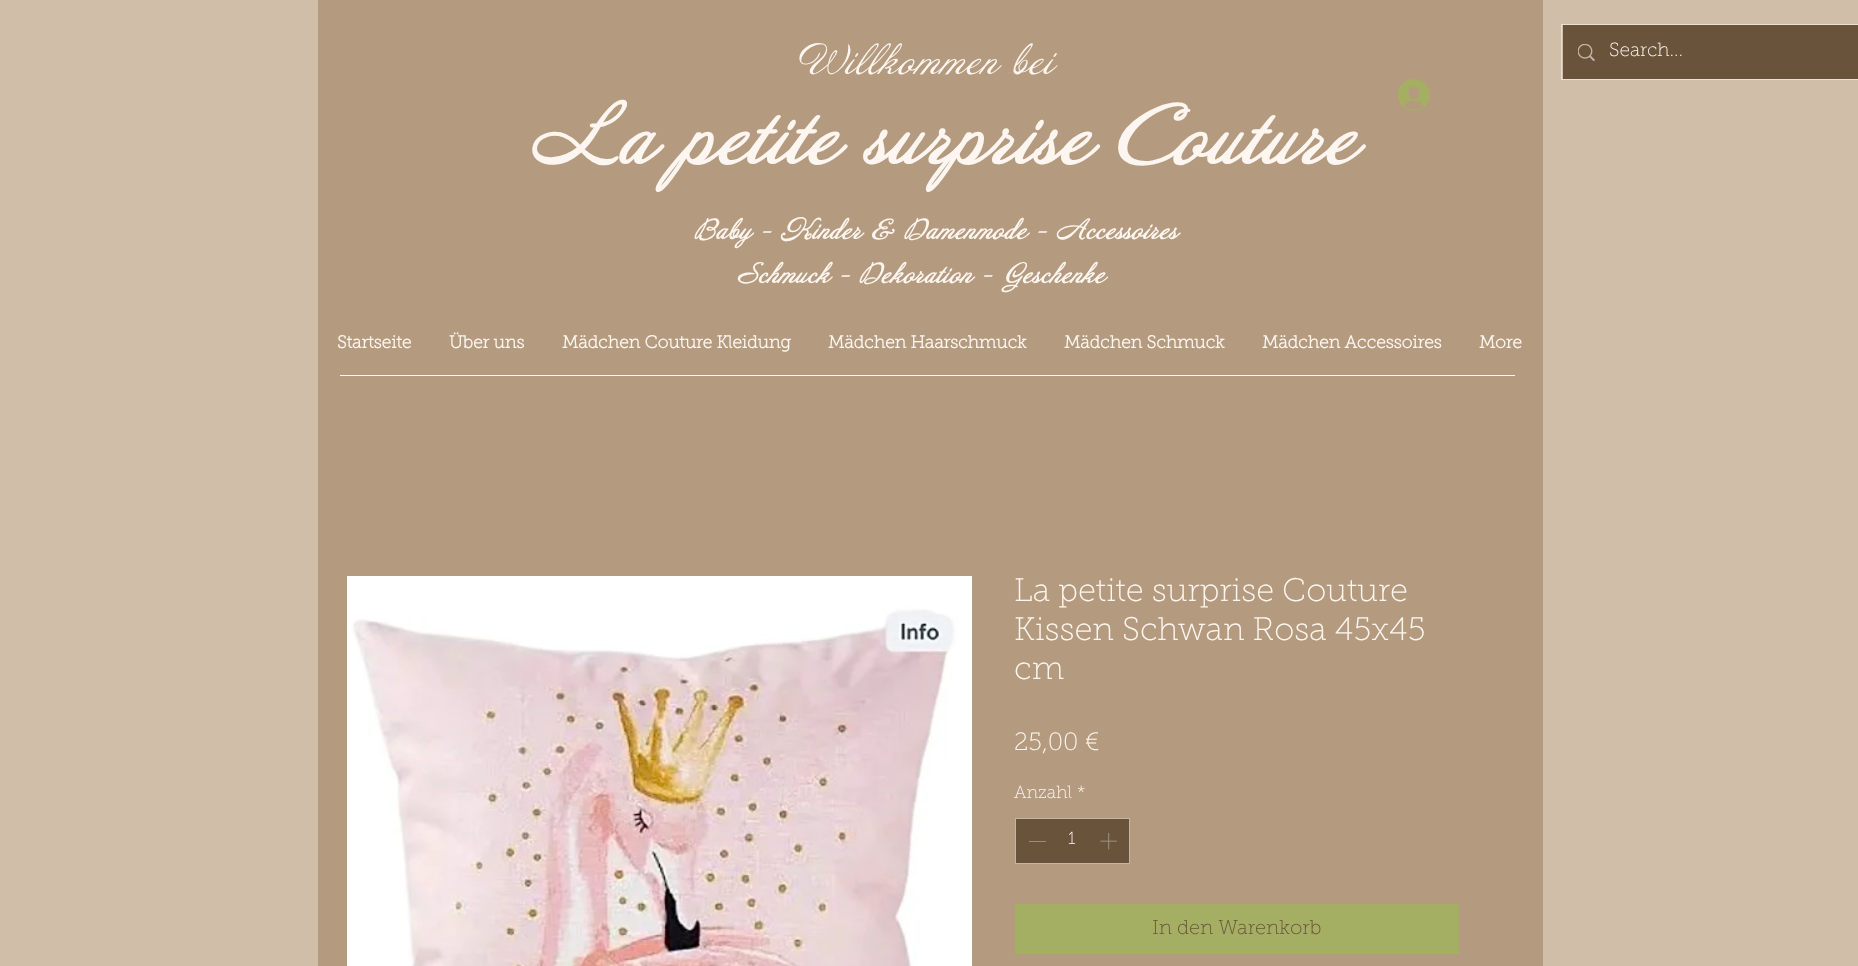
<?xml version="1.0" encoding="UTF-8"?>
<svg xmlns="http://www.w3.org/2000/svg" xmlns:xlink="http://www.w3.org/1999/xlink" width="1858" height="966">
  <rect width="100%" height="100%" fill="#d1bea9" />
  <rect x="318" width="1225" height="966" fill="#b49b7f" />
  <image x="1398" y="79" width="32" height="32" xlink:href="image1.png" />
  <rect x="1561.5" y="24.5" width="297" height="55" fill="none" stroke="#ebe0d4" />
  <rect x="1563" y="25" width="295" height="54" fill="#69533a" />
  <image x="1578" y="44" width="17" height="17" xlink:href="image2.png" />
  <rect x="340" y="375" width="1175" height="1" fill="#fdf6f0" />
  <image x="347" y="576" width="625" height="390" xlink:href="image3.png" />
  <rect x="1015.5" y="818.5" width="114" height="45" fill="#69533a" stroke="#c2b5a7" />
  <rect x="1029" y="841" width="17" height="1" fill="#988d81" />
  <image x="1100" y="833" width="17" height="17" xlink:href="image4.png" />
  <rect x="1015" y="904" width="444" height="50" fill="#a5af63" />
  <text x="799" y="74" style="font-family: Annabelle; font-size: 37.5px; fill: #fdf6f0">Willkommen bei</text>
  <text x="531" y="164" style="font-family: Annabelle; font-size: 75px; font-weight: bold; fill: #fdf6f0">La petite surprise Couture</text>
  <text x="694" y="239" style="font-family: Annabelle; font-size: 25px; font-weight: bold; fill: #fdf6f0">Baby - Kinder &amp; Damenmode - Accessoires</text>
  <text x="737" y="283" style="font-family: Annabelle; font-size: 25px; font-weight: bold; fill: #fdf6f0">Schmuck - Dekoration - Geschenke</text>
  <text x="1609" y="56" style="font-family: 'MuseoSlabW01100'; font-size: 19px; font-weight: 100; fill: #fdf6f0">Search...</text>
  <text x="337" y="348" style="font-family: 'MuseoSlabW01100'; font-size: 17.5px; font-weight: bold; fill: #fdf6f0">Startseite</text>
  <text x="449" y="348" style="font-family: 'MuseoSlabW01100'; font-size: 17.5px; font-weight: bold; fill: #fdf6f0">Über uns</text>
  <text x="562" y="348" style="font-family: 'MuseoSlabW01100'; font-size: 17.5px; font-weight: bold; fill: #fdf6f0">Mädchen Couture Kleidung</text>
  <text x="828" y="348" style="font-family: 'MuseoSlabW01100'; font-size: 17.5px; font-weight: bold; fill: #fdf6f0">Mädchen Haarschmuck</text>
  <text x="1064" y="348" style="font-family: 'MuseoSlabW01100'; font-size: 17.5px; font-weight: bold; fill: #fdf6f0">Mädchen Schmuck</text>
  <text x="1262" y="348" style="font-family: 'MuseoSlabW01100'; font-size: 17.5px; font-weight: bold; fill: #fdf6f0">Mädchen Accessoires</text>
  <text x="1479" y="348" style="font-family: 'MuseoSlabW01100'; font-size: 17.5px; font-weight: bold; fill: #fdf6f0">More</text>
  <text x="1014" y="601" style="font-family: 'MuseoSlabW01100'; font-size: 32.5px; font-weight: 100; fill: #fdf6f0">La petite surprise Couture</text>
  <text x="1014" y="640" style="font-family: 'MuseoSlabW01100'; font-size: 32.5px; font-weight: 100; fill: #fdf6f0">Kissen Schwan Rosa 45x45</text>
  <text x="1014" y="679" style="font-family: 'MuseoSlabW01100'; font-size: 32.5px; font-weight: 100; fill: #fdf6f0">cm</text>
  <text x="1014" y="750" style="font-family: 'MuseoSlabW01100'; font-size: 25px; font-weight: 100; fill: #fdf6f0">25,00 €</text>
  <text x="1014" y="798" style="font-family: 'MuseoSlabW01100'; font-size: 17.5px; font-weight: 100; fill: #fdf6f0">Anzahl</text>
  <text x="1077" y="798" style="font-family: 'MuseoSlabW01100'; font-size: 17.5px; font-weight: 100; fill: #fdf6f0">*</text>
  <text x="1068" y="844" style="font-family: 'MuseoSlabW01100'; font-size: 17.5px; font-weight: 100; fill: #fdf6f0">1</text>
  <text x="1152" y="934" style="font-family: 'MuseoSlabW01100'; font-size: 20px; font-weight: 100; fill: #69533a">In den Warenkorb</text>
</svg>
